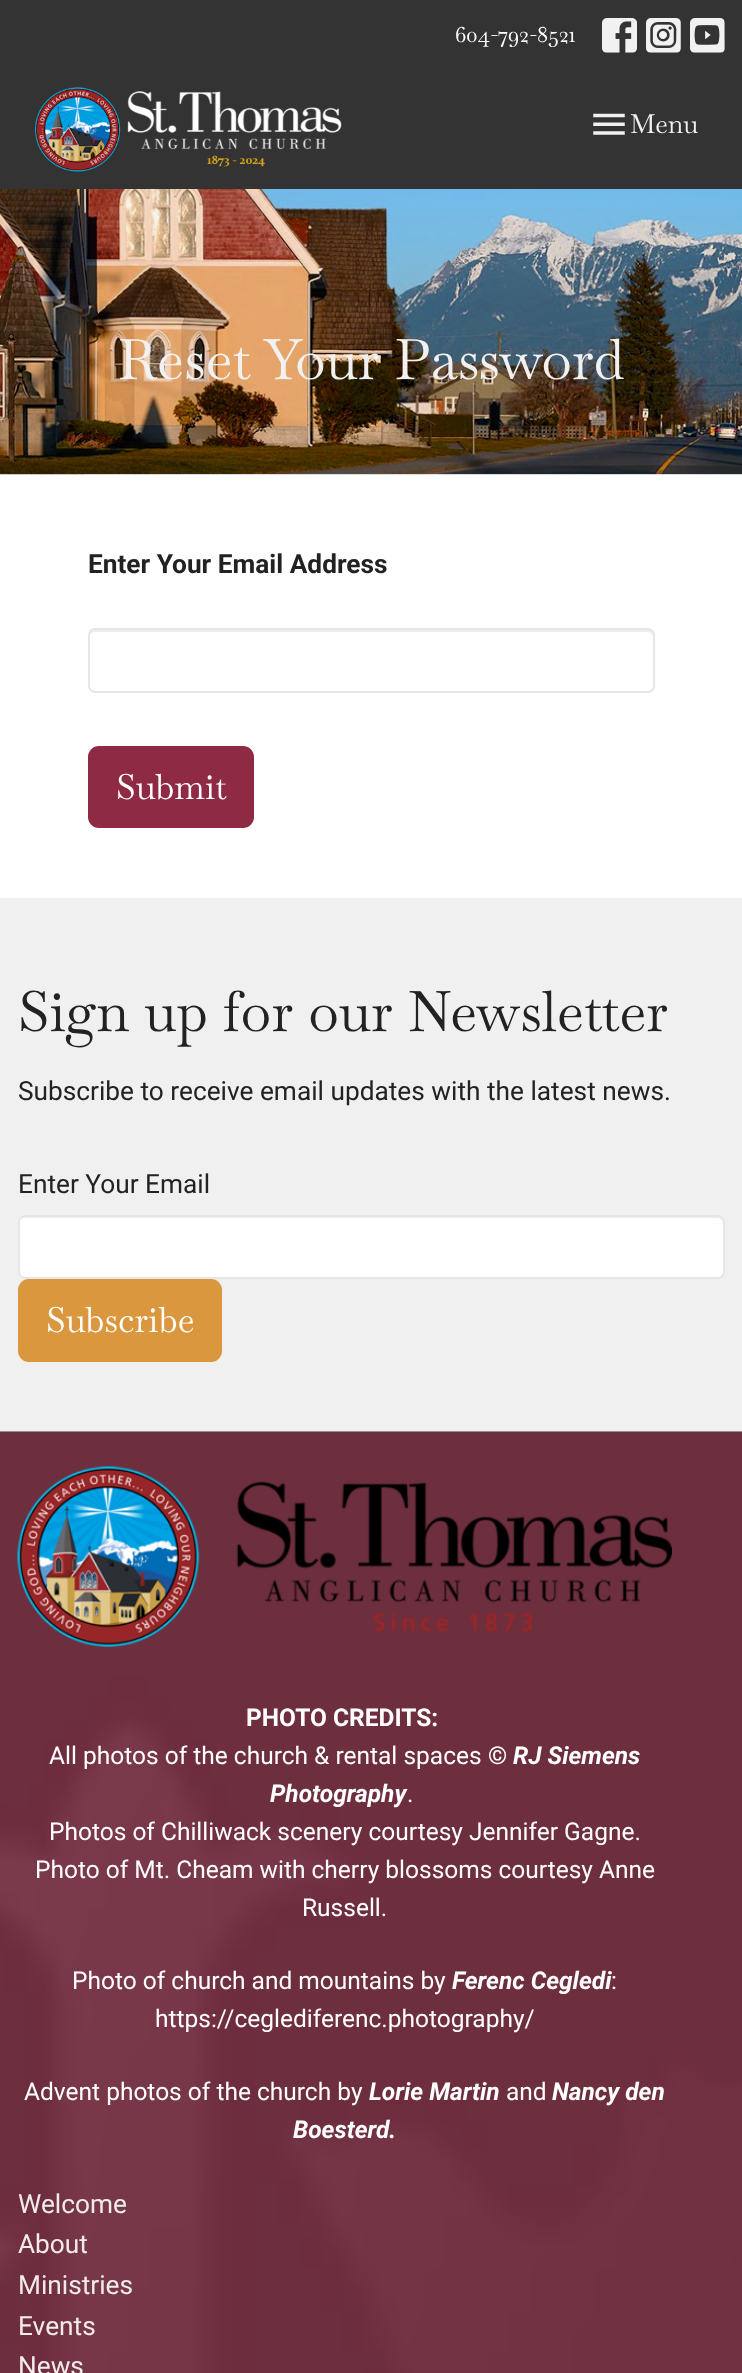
<?xml version="1.0" encoding="UTF-8"?>
<svg xmlns="http://www.w3.org/2000/svg" xmlns:xlink="http://www.w3.org/1999/xlink" width="742" height="2373">
  <rect width="100%" height="100%" fill="#ffffff" />
  <rect width="742" height="189" fill="#333333" />
  <image x="602" y="18" width="35" height="35" xlink:href="image1.png" />
  <image x="646" y="18" width="35" height="35" xlink:href="image2.png" />
  <image x="690" y="18" width="35" height="35" xlink:href="image3.png" />
  <image x="35" y="87" width="307" height="85" xlink:href="image4.png" />
  <image x="593" y="113" width="32" height="22" xlink:href="image5.png" />
  <image x="0" y="189" width="742" height="286" xlink:href="image6.png" />
  <path d="M 94 632 h 554 c 2 0 5 2 5 5 v -2 c 0 -3 -2 -5 -5 -5 h -554 c -3 0 -5 2 -5 5 v 2 c 0 -3 3 -5 5 -5 z" fill="#ececec" />
  <rect x="89" y="629" width="565" height="63" rx="6" fill="none" stroke="#e6e6e6" stroke-width="2" />
  <rect x="88" y="746" width="166" height="82" rx="11" fill="#8f2a44" />
  <rect y="898" width="742" height="534" fill="#f0f0f0" />
  <rect x="18" y="1215" width="707" height="64" rx="7" fill="#ffffff" />
  <path d="M 24 1218 h 694 c 2 0 5 2 5 5 c 0 -3 -1 -7 -5 -7 h -694 c -4 0 -5 4 -5 7 c 0 -3 3 -5 5 -5 z" fill="#ececec" />
  <rect x="19" y="1216" width="705" height="62" rx="6" fill="none" stroke="#e6e6e6" stroke-width="2" />
  <rect x="18" y="1279" width="204" height="83" rx="11" fill="#db973d" />
  <image x="0" y="1431" width="742" height="942" xlink:href="image7.png" />
  <image x="17" y="1466" width="655" height="181" xlink:href="image8.png" />
  <text x="455" y="42" style="font-family: Baskervville; font-size: 22.75px; fill: #ffffff">604-792-8521</text>
  <text x="630" y="133" style="font-family: Baskervville; font-size: 26.25px; fill: #f1f1f1">Menu</text>
  <text x="118" y="379" style="font-family: Baskervville; font-size: 56px; fill: #f1f1f1">Reset Your Password</text>
  <text x="88" y="573" style="font-family: Roboto; font-size: 26.25px; font-weight: bold; fill: #222222">Enter Your Email Address</text>
  <text x="116" y="799" style="font-family: Baskervville; font-size: 35px; fill: #ffffff">Submit</text>
  <text x="18" y="1031" style="font-family: Baskervville; font-size: 56px; fill: #222222">Sign up for our Newsletter</text>
  <text x="18" y="1100" style="font-family: Roboto; font-size: 26.25px; fill: #222222">Subscribe to receive email updates with the latest news.</text>
  <text x="18" y="1193" style="font-family: Roboto; font-size: 26.25px; fill: #222222">Enter Your Email</text>
  <text x="46" y="1332" style="font-family: Baskervville; font-size: 35px; fill: #ffffff">Subscribe</text>
  <text x="246" y="1726" style="font-family: Roboto; font-size: 24.5px; font-weight: bold; fill: #ffffff">PHOTO CREDITS:</text>
  <text x="49" y="1764" style="font-family: Roboto; font-size: 24.5px; fill: #ffffff">All photos of the church &amp; rental spaces</text>
  <text x="488" y="1764" style="font-family: Roboto; font-size: 24.5px; font-weight: bold; fill: #ffffff">©</text>
  <text x="513" y="1764" style="font-family: Roboto; font-size: 24.5px; font-weight: bold; font-style: italic; fill: #ffffff">RJ Siemens</text>
  <text x="270" y="1802" style="font-family: Roboto; font-size: 24.5px; font-weight: bold; font-style: italic; fill: #ffffff">Photography</text>
  <text x="407" y="1802" style="font-family: Roboto; font-size: 24.5px; fill: #ffffff">.</text>
  <text x="49" y="1840" style="font-family: Roboto; font-size: 24.5px; fill: #ffffff">Photos of Chilliwack scenery courtesy Jennifer Gagne.</text>
  <text x="35" y="1878" style="font-family: Roboto; font-size: 24.5px; fill: #ffffff">Photo of Mt. Cheam with cherry blossoms courtesy Anne</text>
  <text x="302" y="1916" style="font-family: Roboto; font-size: 24.5px; fill: #ffffff">Russell.</text>
  <text x="72" y="1989" style="font-family: Roboto; font-size: 24.5px; fill: #ffffff">Photo of church and mountains by</text>
  <text x="452" y="1989" style="font-family: Roboto; font-size: 24.5px; font-weight: bold; font-style: italic; fill: #ffffff">Ferenc Cegledi</text>
  <text x="611" y="1989" style="font-family: Roboto; font-size: 24.5px; fill: #ffffff">:</text>
  <text x="155" y="2027" style="font-family: Roboto; font-size: 24.5px; fill: #ffffff">https://ceglediferenc.photography/</text>
  <text x="24" y="2100" style="font-family: Roboto; font-size: 24.5px; fill: #ffffff">Advent photos of the church by</text>
  <text x="369" y="2100" style="font-family: Roboto; font-size: 24.5px; font-weight: bold; font-style: italic; fill: #ffffff">Lorie Martin</text>
  <text x="506" y="2100" style="font-family: Roboto; font-size: 24.5px; fill: #ffffff">and</text>
  <text x="552" y="2100" style="font-family: Roboto; font-size: 24.5px; font-weight: bold; font-style: italic; fill: #ffffff">Nancy den</text>
  <text x="293" y="2138" style="font-family: Roboto; font-size: 24.5px; font-weight: bold; font-style: italic; fill: #ffffff">Boesterd.</text>
  <text x="18" y="2213" style="font-family: Roboto; font-size: 26.25px; fill: #f1ebec">Welcome</text>
  <text x="18" y="2253" style="font-family: Roboto; font-size: 26.25px; fill: #f1ebec">About</text>
  <text x="18" y="2294" style="font-family: Roboto; font-size: 26.25px; fill: #f1ebec">Ministries</text>
  <text x="18" y="2335" style="font-family: Roboto; font-size: 26.25px; fill: #f1ebec">Events</text>
  <text x="18" y="2375" style="font-family: Roboto; font-size: 26.25px; fill: #f1ebec">News</text>
</svg>
